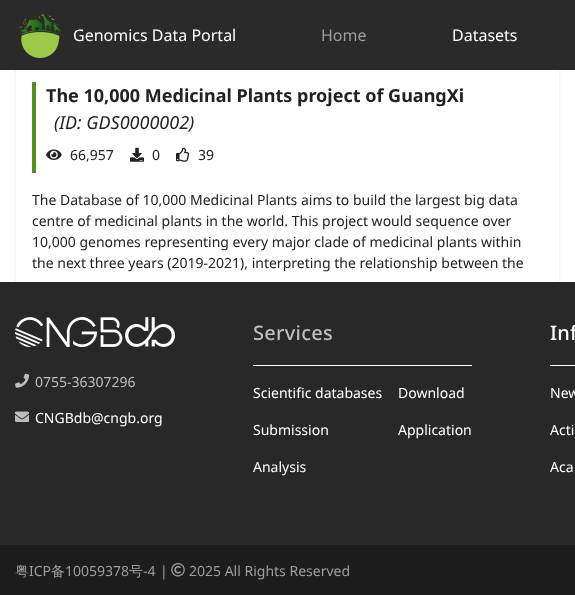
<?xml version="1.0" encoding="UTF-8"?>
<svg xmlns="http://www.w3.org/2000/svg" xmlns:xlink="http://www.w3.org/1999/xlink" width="575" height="595">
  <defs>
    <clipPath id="clip1"><path d="M 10 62 h 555 v 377 h -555 z m 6 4 h 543 v 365 h -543 z" clip-rule="evenodd" /></clipPath>
  </defs>
  <rect width="100%" height="100%" fill="#ffffff" />
  <g clip-path="url(#clip1)">
    <rect x="16" y="68" width="543" height="365" fill="#e5e5e5" filter="blur(1.5px)" />
  </g>
  <rect width="575" height="70" fill="#2a2a2a" />
  <image x="19" y="13" width="42" height="45" xlink:href="image1.png" />
  <rect x="32" y="82" width="4" height="91" fill="#53901d" />
  <image x="46" y="149" width="16" height="11" xlink:href="image2.png" />
  <image x="130" y="147" width="14" height="15" xlink:href="image3.png" />
  <image x="176" y="147" width="14" height="15" xlink:href="image4.png" />
  <rect y="282" width="575" height="263" fill="#282828" />
  <image x="15" y="317" width="160" height="30" xlink:href="image5.png" />
  <image x="15" y="373" width="14" height="15" xlink:href="image6.png" />
  <image x="15" y="411" width="14" height="11" xlink:href="image7.png" />
  <rect x="253" y="365" width="219" height="1" fill="#ffffff" />
  <rect x="550" y="365" width="25" height="1" fill="#ffffff" />
  <rect y="545" width="575" height="50" fill="#1d1d1d" />
  <image x="171" y="563" width="14" height="14" xlink:href="image8.png" />
  <text x="73" y="41" style="font-family: Noto Sans; font-size: 16px; fill: #ffffff">Genomics Data Portal</text>
  <text x="321" y="41" style="font-family: Noto Sans; font-size: 16px; fill: #9e9e9e">Home</text>
  <text x="452" y="41" style="font-family: Noto Sans; font-size: 16px; fill: #ffffff">Datasets</text>
  <text x="46" y="102" style="font-family: Noto Sans; font-size: 18px; font-weight: bold; fill: #222222">The 10,000 Medicinal Plants project of GuangXi</text>
  <text x="54" y="129" style="font-family: Noto Sans; font-size: 18px; font-style: italic; fill: #222222">(ID: GDS0000002)</text>
  <text x="70" y="160" style="font-family: Noto Sans; font-size: 14px; fill: #222222">66,957</text>
  <text x="152" y="160" style="font-family: Noto Sans; font-size: 14px; fill: #222222">0</text>
  <text x="198" y="160" style="font-family: Noto Sans; font-size: 14px; fill: #222222">39</text>
  <text x="32" y="205" style="font-family: Noto Sans; font-size: 14px; fill: #222222">The Database of 10,000 Medicinal Plants aims to build the largest big data</text>
  <text x="32" y="226" style="font-family: Noto Sans; font-size: 14px; fill: #222222">centre of medicinal plants in the world. This project would sequence over</text>
  <text x="32" y="247" style="font-family: Noto Sans; font-size: 14px; fill: #222222">10,000 genomes representing every major clade of medicinal plants within</text>
  <text x="32" y="268" style="font-family: Noto Sans; font-size: 14px; fill: #222222">the next three years (2019-2021), interpreting the relationship between the</text>
  <text x="35" y="387" style="font-family: Noto Sans; font-size: 14px; fill: #bdbdbd">0755-36307296</text>
  <text x="35" y="423" style="font-family: Noto Sans; font-size: 14px; fill: #ffffff">CNGBdb@cngb.org</text>
  <text x="253" y="340" style="font-family: Noto Sans; font-size: 20px; font-weight: 500; letter-spacing: 0.25px; fill: #bdbdbd">Services</text>
  <text x="253" y="398" style="font-family: Noto Sans; font-size: 14px; fill: #ffffff">Scientific databases</text>
  <text x="253" y="435" style="font-family: Noto Sans; font-size: 14px; fill: #ffffff">Submission</text>
  <text x="253" y="472" style="font-family: Noto Sans; font-size: 14px; fill: #ffffff">Analysis</text>
  <text x="398" y="398" style="font-family: Noto Sans; font-size: 14px; fill: #ffffff">Download</text>
  <text x="398" y="435" style="font-family: Noto Sans; font-size: 14px; fill: #ffffff">Application</text>
  <text x="550" y="340" style="font-family: Noto Sans; font-size: 20px; font-weight: 500; letter-spacing: 0.25px; fill: #ffffff">Inf</text>
  <text x="550" y="398" style="font-family: Noto Sans; font-size: 14px; fill: #ffffff">New</text>
  <text x="550" y="435" style="font-family: Noto Sans; font-size: 14px; fill: #ffffff">Acti</text>
  <text x="550" y="472" style="font-family: Noto Sans; font-size: 14px; fill: #ffffff">Aca</text>
  <text x="15" y="576" style="font-family: WenQuanYi Zen Hei; font-size: 14px; font-weight: 500; fill: #9e9e9e">粤</text>
  <text x="29" y="576" style="font-family: Noto Sans; font-size: 14px; fill: #9e9e9e">ICP</text>
  <text x="51" y="576" style="font-family: WenQuanYi Zen Hei; font-size: 14px; font-weight: 500; fill: #9e9e9e">备</text>
  <text x="65" y="576" style="font-family: Noto Sans; font-size: 14px; fill: #9e9e9e">10059378</text>
  <text x="129" y="576" style="font-family: WenQuanYi Zen Hei; font-size: 14px; font-weight: 500; fill: #9e9e9e">号</text>
  <text x="143" y="576" style="font-family: Noto Sans; font-size: 14px; fill: #9e9e9e">-4</text>
  <text x="160" y="576" style="font-family: Noto Sans; font-size: 14px; fill: #9e9e9e">|</text>
  <text x="189" y="576" style="font-family: Noto Sans; font-size: 14px; fill: #9e9e9e">2025 All Rights Reserved</text>
</svg>
